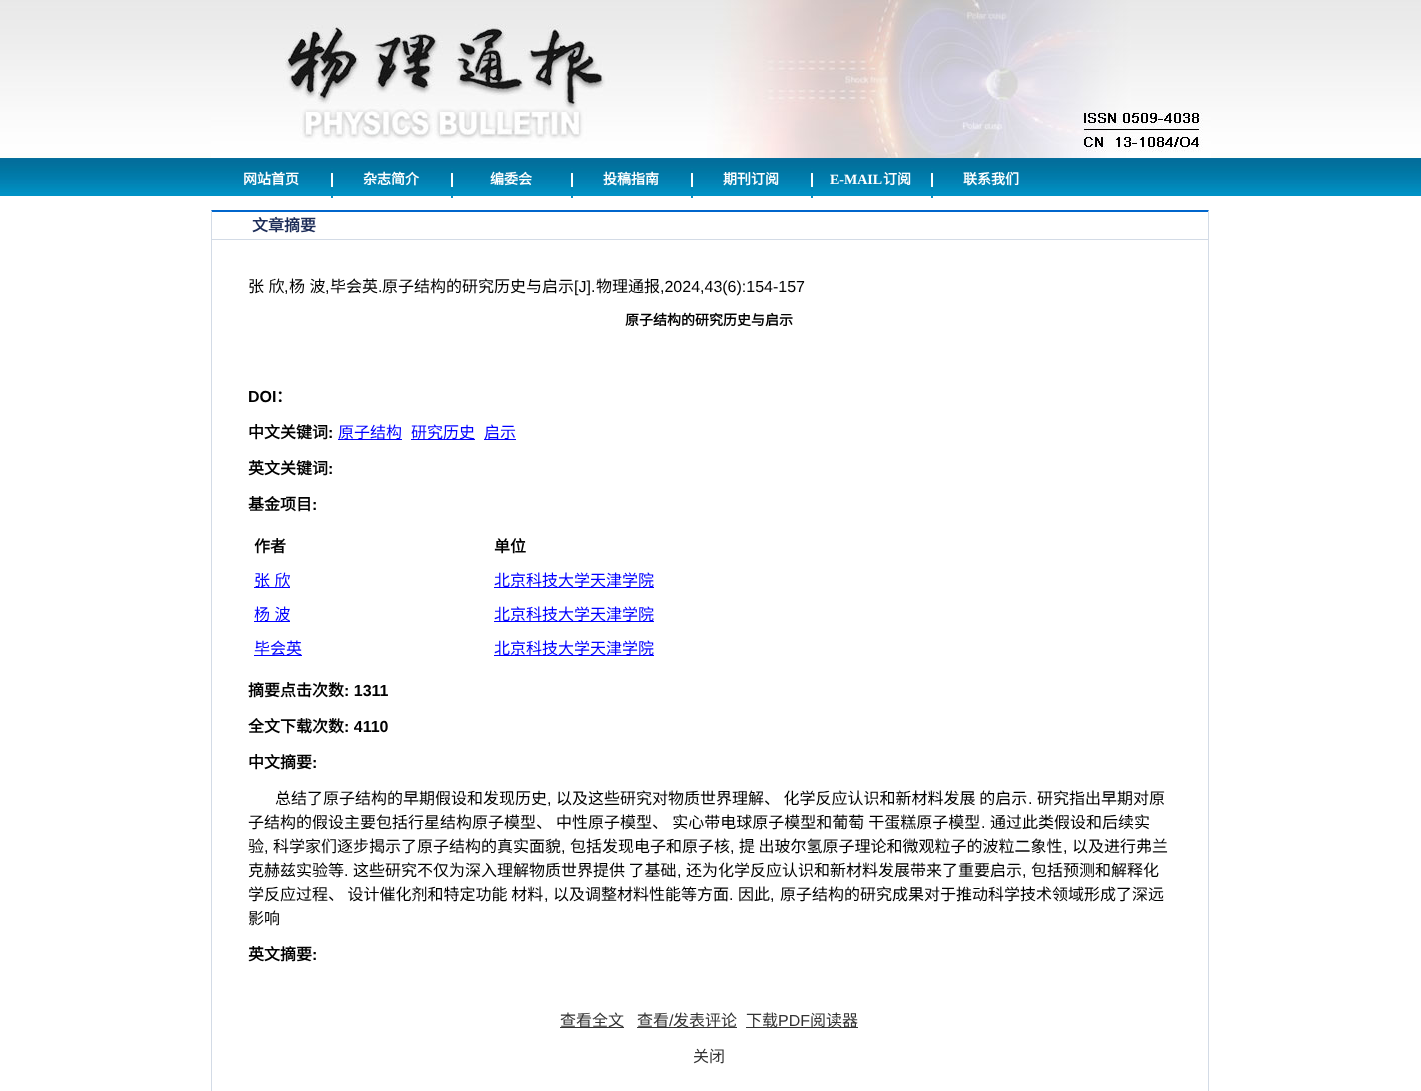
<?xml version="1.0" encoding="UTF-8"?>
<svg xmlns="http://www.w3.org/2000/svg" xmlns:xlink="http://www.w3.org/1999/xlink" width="1421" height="1091">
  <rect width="100%" height="100%" fill="#ffffff" />
  <image x="0" y="0" width="1421" height="196" xlink:href="image1.png" />
  <image x="211" y="0" width="1000" height="158" xlink:href="image2.png" />
  <image x="331" y="168" width="2" height="30" xlink:href="image3.png" />
  <image x="451" y="168" width="2" height="30" xlink:href="image3.png" />
  <image x="571" y="168" width="2" height="30" xlink:href="image3.png" />
  <image x="691" y="168" width="2" height="30" xlink:href="image3.png" />
  <image x="811" y="168" width="2" height="30" xlink:href="image3.png" />
  <image x="931" y="168" width="2" height="30" xlink:href="image3.png" />
  <path d="M 211 210 h 998 l -1 2 h -996 z" fill="#0066cc" />
  <path d="M 1209 210 v 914 l -1 -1 v -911 z" fill="#d3dbe6" />
  <path d="M 211 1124 v -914 l 1 2 v 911 z" fill="#d3dbe6" />
  <rect x="212" y="239" width="996" height="1" fill="#d3dbe6" />
  <rect x="338" y="439" width="64" height="1" fill="#0000ff" />
  <rect x="411" y="439" width="64" height="1" fill="#0000ff" />
  <rect x="484" y="439" width="32" height="1" fill="#0000ff" />
  <rect x="254" y="587" width="36" height="1" fill="#0000ff" />
  <rect x="494" y="587" width="160" height="1" fill="#0000ff" />
  <rect x="254" y="621" width="36" height="1" fill="#0000ff" />
  <rect x="494" y="621" width="160" height="1" fill="#0000ff" />
  <rect x="254" y="655" width="48" height="1" fill="#0000ff" />
  <rect x="494" y="655" width="160" height="1" fill="#0000ff" />
  <rect x="560" y="1027" width="64" height="1" fill="#333333" />
  <rect x="637" y="1027" width="100" height="1" fill="#333333" />
  <rect x="746" y="1027" width="112" height="1" fill="#333333" />
  <text x="243" y="184" style="font-family: Noto Sans CJK SC; font-size: 14px; font-weight: bold; fill: #ffffff">网站首页</text>
  <text x="363" y="184" style="font-family: Noto Sans CJK SC; font-size: 14px; font-weight: bold; fill: #ffffff">杂志简介</text>
  <text x="490" y="184" style="font-family: Noto Sans CJK SC; font-size: 14px; font-weight: bold; fill: #ffffff">编委会</text>
  <text x="603" y="184" style="font-family: Noto Sans CJK SC; font-size: 14px; font-weight: bold; fill: #ffffff">投稿指南</text>
  <text x="723" y="184" style="font-family: Noto Sans CJK SC; font-size: 14px; font-weight: bold; fill: #ffffff">期刊订阅</text>
  <text x="830" y="184" style="font-family: Liberation Serif; font-size: 14px; font-weight: bold; fill: #ffffff">E-MAIL</text>
  <text x="883" y="184" style="font-family: Noto Sans CJK SC; font-size: 14px; font-weight: bold; fill: #ffffff">订阅</text>
  <text x="963" y="184" style="font-family: Noto Sans CJK SC; font-size: 14px; font-weight: bold; fill: #ffffff">联系我们</text>
  <text x="252" y="231" style="font-family: Noto Sans CJK SC; font-size: 16px; font-weight: bold; fill: #1c2c58">文章摘要</text>
  <text x="248" y="292" word-spacing="1" style="font-family: Noto Sans CJK SC; font-size: 16px; fill: #000000">张 欣</text>
  <text x="284" y="292" style="font-family: Liberation Sans; font-size: 16px; fill: #000000">,</text>
  <text x="289" y="292" word-spacing="1" style="font-family: Noto Sans CJK SC; font-size: 16px; fill: #000000">杨 波</text>
  <text x="325" y="292" style="font-family: Liberation Sans; font-size: 16px; fill: #000000">,</text>
  <text x="330" y="292" style="font-family: Noto Sans CJK SC; font-size: 16px; fill: #000000">毕会英</text>
  <text x="378" y="292" style="font-family: Liberation Sans; font-size: 16px; fill: #000000">.</text>
  <text x="382" y="292" style="font-family: Noto Sans CJK SC; font-size: 16px; fill: #000000">原子结构的研究历史与启示</text>
  <text x="574" y="292" style="font-family: Liberation Sans; font-size: 16px; fill: #000000">[J].</text>
  <text x="596" y="292" style="font-family: Noto Sans CJK SC; font-size: 16px; fill: #000000">物理通报</text>
  <text x="660" y="292" style="font-family: Liberation Sans; font-size: 16px; fill: #000000">,2024,43(6):154-157</text>
  <text x="625" y="325" style="font-family: Noto Sans CJK SC; font-size: 14px; font-weight: bold; fill: #000000">原子结构的研究历史与启示</text>
  <text x="248" y="402" style="font-family: Liberation Sans; font-size: 16px; font-weight: bold; fill: #000000">DOI</text>
  <text x="276" y="402" style="font-family: Noto Sans CJK SC; font-size: 16px; font-weight: bold; fill: #000000">：</text>
  <text x="248" y="438" style="font-family: Noto Sans CJK SC; font-size: 16px; font-weight: bold; fill: #000000">中文关键词</text>
  <text x="328" y="438" style="font-family: Liberation Sans; font-size: 16px; font-weight: bold; fill: #000000">:</text>
  <text x="338" y="438" style="font-family: Noto Sans CJK SC; font-size: 16px; fill: #0000ff">原子结构</text>
  <text x="411" y="438" style="font-family: Noto Sans CJK SC; font-size: 16px; fill: #0000ff">研究历史</text>
  <text x="484" y="438" style="font-family: Noto Sans CJK SC; font-size: 16px; fill: #0000ff">启示</text>
  <text x="248" y="474" style="font-family: Noto Sans CJK SC; font-size: 16px; font-weight: bold; fill: #000000">英文关键词</text>
  <text x="328" y="474" style="font-family: Liberation Sans; font-size: 16px; font-weight: bold; fill: #000000">:</text>
  <text x="248" y="510" style="font-family: Noto Sans CJK SC; font-size: 16px; font-weight: bold; fill: #000000">基金项目</text>
  <text x="312" y="510" style="font-family: Liberation Sans; font-size: 16px; font-weight: bold; fill: #000000">:</text>
  <text x="254" y="552" style="font-family: Noto Sans CJK SC; font-size: 16px; font-weight: bold; fill: #000000">作者</text>
  <text x="494" y="552" style="font-family: Noto Sans CJK SC; font-size: 16px; font-weight: bold; fill: #000000">单位</text>
  <text x="254" y="586" word-spacing="1" style="font-family: Noto Sans CJK SC; font-size: 16px; fill: #0000ff">张 欣</text>
  <text x="494" y="586" style="font-family: Noto Sans CJK SC; font-size: 16px; fill: #0000ff">北京科技大学天津学院</text>
  <text x="254" y="620" word-spacing="1" style="font-family: Noto Sans CJK SC; font-size: 16px; fill: #0000ff">杨 波</text>
  <text x="494" y="620" style="font-family: Noto Sans CJK SC; font-size: 16px; fill: #0000ff">北京科技大学天津学院</text>
  <text x="254" y="654" style="font-family: Noto Sans CJK SC; font-size: 16px; fill: #0000ff">毕会英</text>
  <text x="494" y="654" style="font-family: Noto Sans CJK SC; font-size: 16px; fill: #0000ff">北京科技大学天津学院</text>
  <text x="248" y="696" style="font-family: Noto Sans CJK SC; font-size: 16px; font-weight: bold; fill: #000000">摘要点击次数</text>
  <text x="344" y="696" style="font-family: Liberation Sans; font-size: 16px; font-weight: bold; fill: #000000">: 1311</text>
  <text x="248" y="732" style="font-family: Noto Sans CJK SC; font-size: 16px; font-weight: bold; fill: #000000">全文下载次数</text>
  <text x="344" y="732" style="font-family: Liberation Sans; font-size: 16px; font-weight: bold; fill: #000000">: 4110</text>
  <text x="248" y="768" style="font-family: Noto Sans CJK SC; font-size: 16px; font-weight: bold; fill: #000000">中文摘要</text>
  <text x="312" y="768" style="font-family: Liberation Sans; font-size: 16px; font-weight: bold; fill: #000000">:</text>
  <text x="275" y="804" style="font-family: Noto Sans CJK SC; font-size: 16px; fill: #000000">总结了原子结构的早期假设和发现历史</text>
  <text x="547" y="804" style="font-family: Liberation Sans; font-size: 16px; fill: #000000">,</text>
  <text x="556" y="804" style="font-family: Noto Sans CJK SC; font-size: 16px; fill: #000000">以及这些研究对物质世界理解、 化学反应认识和新材料发展 的启示</text>
  <text x="1028" y="804" style="font-family: Liberation Sans; font-size: 16px; fill: #000000">.</text>
  <text x="1037" y="804" style="font-family: Noto Sans CJK SC; font-size: 16px; fill: #000000">研究指出早期对原</text>
  <text x="248" y="828" word-spacing="0.5" style="font-family: Noto Sans CJK SC; font-size: 16px; fill: #000000">子结构的假设主要包括行星结构原子模型、 中性原子模型、 实心带电球原子模型和葡萄 干蛋糕原子模型</text>
  <text x="981" y="828" style="font-family: Liberation Sans; font-size: 16px; fill: #000000">.</text>
  <text x="990" y="828" style="font-family: Noto Sans CJK SC; font-size: 16px; fill: #000000">通过此类假设和后续实</text>
  <text x="248" y="852" style="font-family: Noto Sans CJK SC; font-size: 16px; fill: #000000">验</text>
  <text x="264" y="852" style="font-family: Liberation Sans; font-size: 16px; fill: #000000">,</text>
  <text x="273" y="852" style="font-family: Noto Sans CJK SC; font-size: 16px; fill: #000000">科学家们逐步揭示了原子结构的真实面貌</text>
  <text x="561" y="852" style="font-family: Liberation Sans; font-size: 16px; fill: #000000">,</text>
  <text x="570" y="852" style="font-family: Noto Sans CJK SC; font-size: 16px; fill: #000000">包括发现电子和原子核</text>
  <text x="730" y="852" style="font-family: Liberation Sans; font-size: 16px; fill: #000000">,</text>
  <text x="739" y="852" style="font-family: Noto Sans CJK SC; font-size: 16px; fill: #000000">提 出玻尔氢原子理论和微观粒子的波粒二象性</text>
  <text x="1063" y="852" style="font-family: Liberation Sans; font-size: 16px; fill: #000000">,</text>
  <text x="1072" y="852" style="font-family: Noto Sans CJK SC; font-size: 16px; fill: #000000">以及进行弗兰</text>
  <text x="248" y="876" style="font-family: Noto Sans CJK SC; font-size: 16px; fill: #000000">克赫兹实验等</text>
  <text x="344" y="876" style="font-family: Liberation Sans; font-size: 16px; fill: #000000">.</text>
  <text x="353" y="876" style="font-family: Noto Sans CJK SC; font-size: 16px; fill: #000000">这些研究不仅为深入理解物质世界提供 了基础</text>
  <text x="677" y="876" style="font-family: Liberation Sans; font-size: 16px; fill: #000000">,</text>
  <text x="686" y="876" style="font-family: Noto Sans CJK SC; font-size: 16px; fill: #000000">还为化学反应认识和新材料发展带来了重要启示</text>
  <text x="1022" y="876" style="font-family: Liberation Sans; font-size: 16px; fill: #000000">,</text>
  <text x="1031" y="876" style="font-family: Noto Sans CJK SC; font-size: 16px; fill: #000000">包括预测和解释化</text>
  <text x="248" y="900" style="font-family: Noto Sans CJK SC; font-size: 16px; fill: #000000">学反应过程、 设计催化剂和特定功能 材料</text>
  <text x="544" y="900" style="font-family: Liberation Sans; font-size: 16px; fill: #000000">,</text>
  <text x="553" y="900" style="font-family: Noto Sans CJK SC; font-size: 16px; fill: #000000">以及调整材料性能等方面</text>
  <text x="729" y="900" style="font-family: Liberation Sans; font-size: 16px; fill: #000000">.</text>
  <text x="738" y="900" style="font-family: Noto Sans CJK SC; font-size: 16px; fill: #000000">因此</text>
  <text x="770" y="900" style="font-family: Liberation Sans; font-size: 16px; fill: #000000">,</text>
  <text x="780" y="900" style="font-family: Noto Sans CJK SC; font-size: 16px; fill: #000000">原子结构的研究成果对于推动科学技术领域形成了深远</text>
  <text x="248" y="924" style="font-family: Noto Sans CJK SC; font-size: 16px; fill: #000000">影响</text>
  <text x="248" y="960" style="font-family: Noto Sans CJK SC; font-size: 16px; font-weight: bold; fill: #000000">英文摘要</text>
  <text x="312" y="960" style="font-family: Liberation Sans; font-size: 16px; font-weight: bold; fill: #000000">:</text>
  <text x="560" y="1026" style="font-family: Noto Sans CJK SC; font-size: 16px; fill: #333333">查看全文</text>
  <text x="637" y="1026" style="font-family: Noto Sans CJK SC; font-size: 16px; fill: #333333">查看</text>
  <text x="669" y="1026" style="font-family: Liberation Sans; font-size: 16px; fill: #333333">/</text>
  <text x="673" y="1026" style="font-family: Noto Sans CJK SC; font-size: 16px; fill: #333333">发表评论</text>
  <text x="746" y="1026" style="font-family: Noto Sans CJK SC; font-size: 16px; fill: #333333">下载</text>
  <text x="778" y="1026" style="font-family: Liberation Sans; font-size: 16px; fill: #333333">PDF</text>
  <text x="810" y="1026" style="font-family: Noto Sans CJK SC; font-size: 16px; fill: #333333">阅读器</text>
  <text x="693" y="1062" style="font-family: Noto Sans CJK SC; font-size: 16px; fill: #333333">关闭</text>
</svg>
